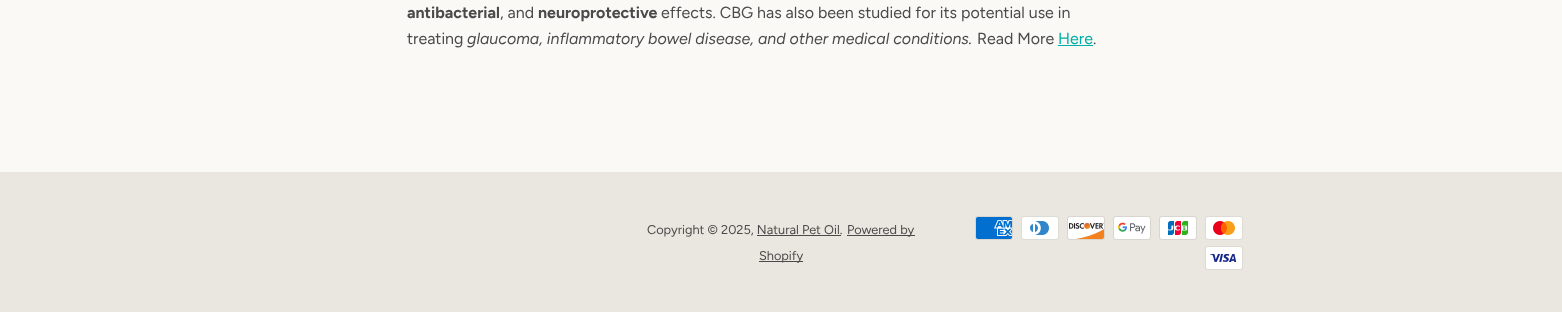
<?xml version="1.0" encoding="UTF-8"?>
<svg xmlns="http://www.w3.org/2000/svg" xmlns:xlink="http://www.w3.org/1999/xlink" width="1562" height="312">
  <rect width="100%" height="100%" fill="#eae7e0" />
  <rect width="1562" height="172" fill="#faf9f6" />
  <rect x="1058" y="45" width="35" height="1" fill="#00afa7" />
  <rect x="757" y="235" width="84" height="1" fill="#4a4a4a" />
  <rect x="847" y="235" width="68" height="1" fill="#4a4a4a" />
  <rect x="759" y="261" width="44" height="1" fill="#4a4a4a" />
  <image x="975" y="216" width="38" height="24" xlink:href="image1.png" />
  <image x="1021" y="216" width="38" height="24" xlink:href="image2.png" />
  <image x="1067" y="216" width="38" height="24" xlink:href="image3.png" />
  <image x="1113" y="216" width="38" height="24" xlink:href="image4.png" />
  <image x="1159" y="216" width="38" height="24" xlink:href="image5.png" />
  <image x="1205" y="216" width="38" height="24" xlink:href="image6.png" />
  <image x="1205" y="246" width="38" height="24" xlink:href="image7.png" />
  <text x="407" y="18" style="font-family: Figtree; font-size: 16px; font-weight: bold; fill: #4a4a4a">antibacterial</text>
  <text x="500" y="18" style="font-family: Figtree; font-size: 16px; fill: #4a4a4a">, and</text>
  <text x="538" y="18" style="font-family: Figtree; font-size: 16px; font-weight: bold; fill: #4a4a4a">neuroprotective</text>
  <text x="661" y="18" style="font-family: Figtree; font-size: 16px; fill: #4a4a4a">effects. CBG has also been studied for its potential use in</text>
  <text x="407" y="44" style="font-family: Figtree; font-size: 16px; fill: #4a4a4a">treating</text>
  <text x="467" y="44" style="font-family: Figtree; font-size: 16px; font-style: italic; fill: #4a4a4a">glaucoma, inflammatory bowel disease, and other medical conditions.</text>
  <text x="977" y="44" style="font-family: Figtree; font-size: 16px; fill: #4a4a4a">Read More</text>
  <text x="1058" y="44" style="font-family: Figtree; font-size: 16px; fill: #00afa7">Here</text>
  <text x="1093" y="44" style="font-family: Figtree; font-size: 16px; fill: #4a4a4a">.</text>
  <text x="647" y="234" style="font-family: Figtree; font-size: 12.75px; fill: #4a4a4a">Copyright © 2025, Natural Pet Oil.</text>
  <text x="847" y="234" style="font-family: Figtree; font-size: 12.75px; fill: #4a4a4a">Powered by</text>
  <text x="759" y="260" style="font-family: Figtree; font-size: 12.75px; fill: #4a4a4a">Shopify</text>
</svg>
